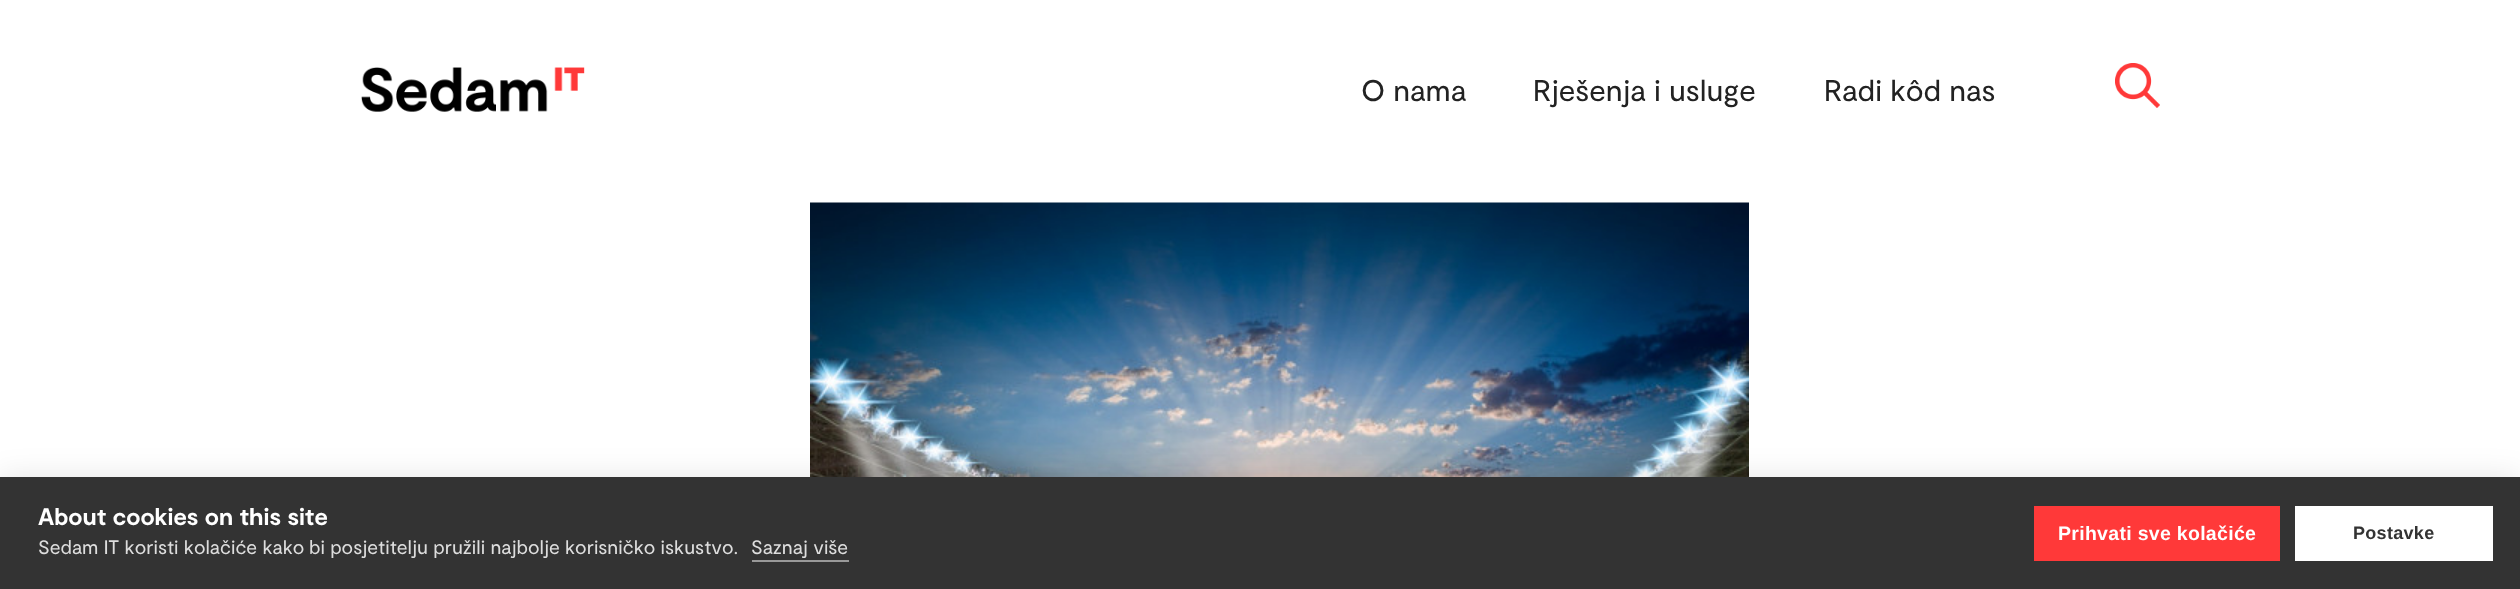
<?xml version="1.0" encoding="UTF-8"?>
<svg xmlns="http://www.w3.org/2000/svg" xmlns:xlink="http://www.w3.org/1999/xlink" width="2520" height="589">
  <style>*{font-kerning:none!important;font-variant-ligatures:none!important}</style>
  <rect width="100%" height="100%" fill="#ffffff" />
  <image x="361" y="67" width="224" height="45" xlink:href="image1.png" />
  <image x="2115" y="63" width="45" height="45" xlink:href="image2.png" />
  <image x="810" y="202" width="939" height="275" xlink:href="image3.png" />
  <rect y="477" width="2520" height="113" fill="#000000" fill-opacity="0.1" filter="blur(15px)" />
  <rect y="477" width="2520" height="112" fill="#333333" />
  <rect x="752" y="560" width="97" height="2" fill="#999999" />
  <rect x="2034" y="506" width="246" height="55" fill="#ff3939" />
  <rect x="2295" y="506" width="198" height="55" fill="#ffffff" />
  <text x="1361" y="101" style="font-family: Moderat; font-size: 30px; fill: #222222">O nama</text>
  <text x="1533" y="101" style="font-family: Moderat; font-size: 30px; fill: #222222">Rješenja i usluge</text>
  <text x="1824" y="101" style="font-family: Moderat; font-size: 30px; fill: #222222">Radi kôd nas</text>
  <text x="38" y="525" style="font-family: Moderat; font-size: 24px; font-weight: bold; fill: #ffffff">About cookies on this site</text>
  <text x="38" y="554" style="font-family: Moderat; font-size: 19.5px; fill: #dddddd">Sedam IT koristi kolačiće kako</text>
  <text x="309" y="554" style="font-family: Moderat; font-size: 19.5px; fill: #dddddd">bi posjetitelju pružili najbolje</text>
  <text x="565" y="554" style="font-family: Moderat; font-size: 19.5px; fill: #dddddd">korisničko iskustvo.</text>
  <text x="751" y="554" style="font-family: Moderat; font-size: 19.5px; fill: #dddddd">Saznaj više</text>
  <text x="2058" y="540" style="font-family: Liberation Sans; font-size: 19.5px; font-weight: bold; letter-spacing: 0.3px; fill: #ffffff">Prihvati sve kolačiće</text>
  <text x="2353" y="539" style="font-family: Liberation Sans; font-size: 18px; font-weight: bold; letter-spacing: 0.3px; fill: #333333">Postavke</text>
</svg>
